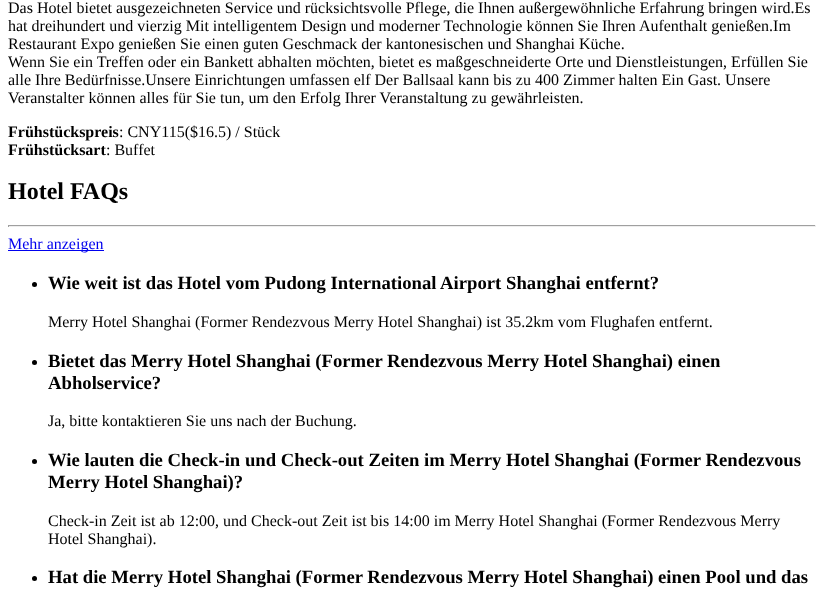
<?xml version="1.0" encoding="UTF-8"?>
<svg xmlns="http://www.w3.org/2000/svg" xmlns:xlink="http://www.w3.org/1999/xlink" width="824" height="598">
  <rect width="100%" height="100%" fill="#ffffff" />
  <rect x="8" y="225" width="808" height="1" fill="#9f9f9f" />
  <rect x="815" y="225" width="1" height="2" fill="#eeeeee" />
  <rect x="8" y="226" width="808" height="1" fill="#eeeeee" />
  <rect x="8" y="225" width="1" height="2" fill="#9f9f9f" />
  <rect x="8" y="250" width="96" height="1" fill="#0000ee" />
  <circle cx="34.5" cy="284.5" r="2.5" fill="#000000" />
  <circle cx="34.5" cy="362.5" r="2.5" fill="#000000" />
  <circle cx="34.5" cy="461.5" r="2.5" fill="#000000" />
  <circle cx="34.5" cy="578.5" r="2.5" fill="#000000" />
  <text x="8" y="13" style="font-family: Liberation Serif; font-size: 16px; fill: #000000">Das Hotel bietet ausgezeichneten Service und rücksichtsvolle Pflege, die Ihnen außergewöhnliche Erfahrung bringen wird.Es</text>
  <text x="8" y="31" style="font-family: Liberation Serif; font-size: 16px; fill: #000000">hat dreihundert und vierzig Mit intelligentem Design und moderner Technologie können Sie Ihren Aufenthalt genießen.Im</text>
  <text x="8" y="49" style="font-family: Liberation Serif; font-size: 16px; fill: #000000">Restaurant Expo genießen Sie einen guten Geschmack der kantonesischen und Shanghai Küche.</text>
  <text x="8" y="67" style="font-family: Liberation Serif; font-size: 16px; fill: #000000">Wenn Sie ein Treffen oder ein Bankett abhalten möchten, bietet es maßgeschneiderte Orte und Dienstleistungen, Erfüllen Sie</text>
  <text x="8" y="85" style="font-family: Liberation Serif; font-size: 16px; fill: #000000">alle Ihre Bedürfnisse.Unsere Einrichtungen umfassen elf Der Ballsaal kann bis zu 400 Zimmer halten Ein Gast. Unsere</text>
  <text x="8" y="103" style="font-family: Liberation Serif; font-size: 16px; fill: #000000">Veranstalter können alles für Sie tun, um den Erfolg Ihrer Veranstaltung zu gewährleisten.</text>
  <text x="8" y="137" style="font-family: Liberation Serif; font-size: 16px; font-weight: bold; fill: #000000">Frühstückspreis</text>
  <text x="119" y="137" style="font-family: Liberation Serif; font-size: 16px; fill: #000000">: CNY115($16.5) / Stück</text>
  <text x="8" y="155" style="font-family: Liberation Serif; font-size: 16px; font-weight: bold; fill: #000000">Frühstücksart</text>
  <text x="106" y="155" style="font-family: Liberation Serif; font-size: 16px; fill: #000000">: Buffet</text>
  <text x="8" y="199" style="font-family: Liberation Serif; font-size: 24px; font-weight: bold; fill: #000000">Hotel FAQs</text>
  <text x="8" y="249" style="font-family: Liberation Serif; font-size: 16px; fill: #0000ee">Mehr anzeigen</text>
  <text x="48" y="289" style="font-family: Liberation Serif; font-size: 18.7px; font-weight: bold; fill: #000000">Wie weit ist das Hotel vom Pudong International Airport Shanghai entfernt?</text>
  <text x="48" y="327" style="font-family: Liberation Serif; font-size: 16px; fill: #000000">Merry Hotel Shanghai (Former Rendezvous Merry Hotel Shanghai) ist 35.2km vom Flughafen entfernt.</text>
  <text x="48" y="367" style="font-family: Liberation Serif; font-size: 18.7px; font-weight: bold; fill: #000000">Bietet das Merry Hotel Shanghai (Former Rendezvous Merry Hotel Shanghai) einen</text>
  <text x="48" y="389" style="font-family: Liberation Serif; font-size: 18.7px; font-weight: bold; fill: #000000">Abholservice?</text>
  <text x="48" y="426" style="font-family: Liberation Serif; font-size: 16px; fill: #000000">Ja, bitte kontaktieren Sie uns nach der Buchung.</text>
  <text x="48" y="466" style="font-family: Liberation Serif; font-size: 18.7px; font-weight: bold; fill: #000000">Wie lauten die Check-in und Check-out Zeiten im Merry Hotel Shanghai (Former Rendezvous</text>
  <text x="48" y="488" style="font-family: Liberation Serif; font-size: 18.7px; font-weight: bold; fill: #000000">Merry Hotel Shanghai)?</text>
  <text x="48" y="526" style="font-family: Liberation Serif; font-size: 16px; fill: #000000">Check-in Zeit ist ab 12:00, und Check-out Zeit ist bis 14:00 im Merry Hotel Shanghai (Former Rendezvous Merry</text>
  <text x="48" y="544" style="font-family: Liberation Serif; font-size: 16px; fill: #000000">Hotel Shanghai).</text>
  <text x="48" y="583" style="font-family: Liberation Serif; font-size: 18.7px; font-weight: bold; fill: #000000">Hat die Merry Hotel Shanghai (Former Rendezvous Merry Hotel Shanghai) einen Pool und das</text>
</svg>
